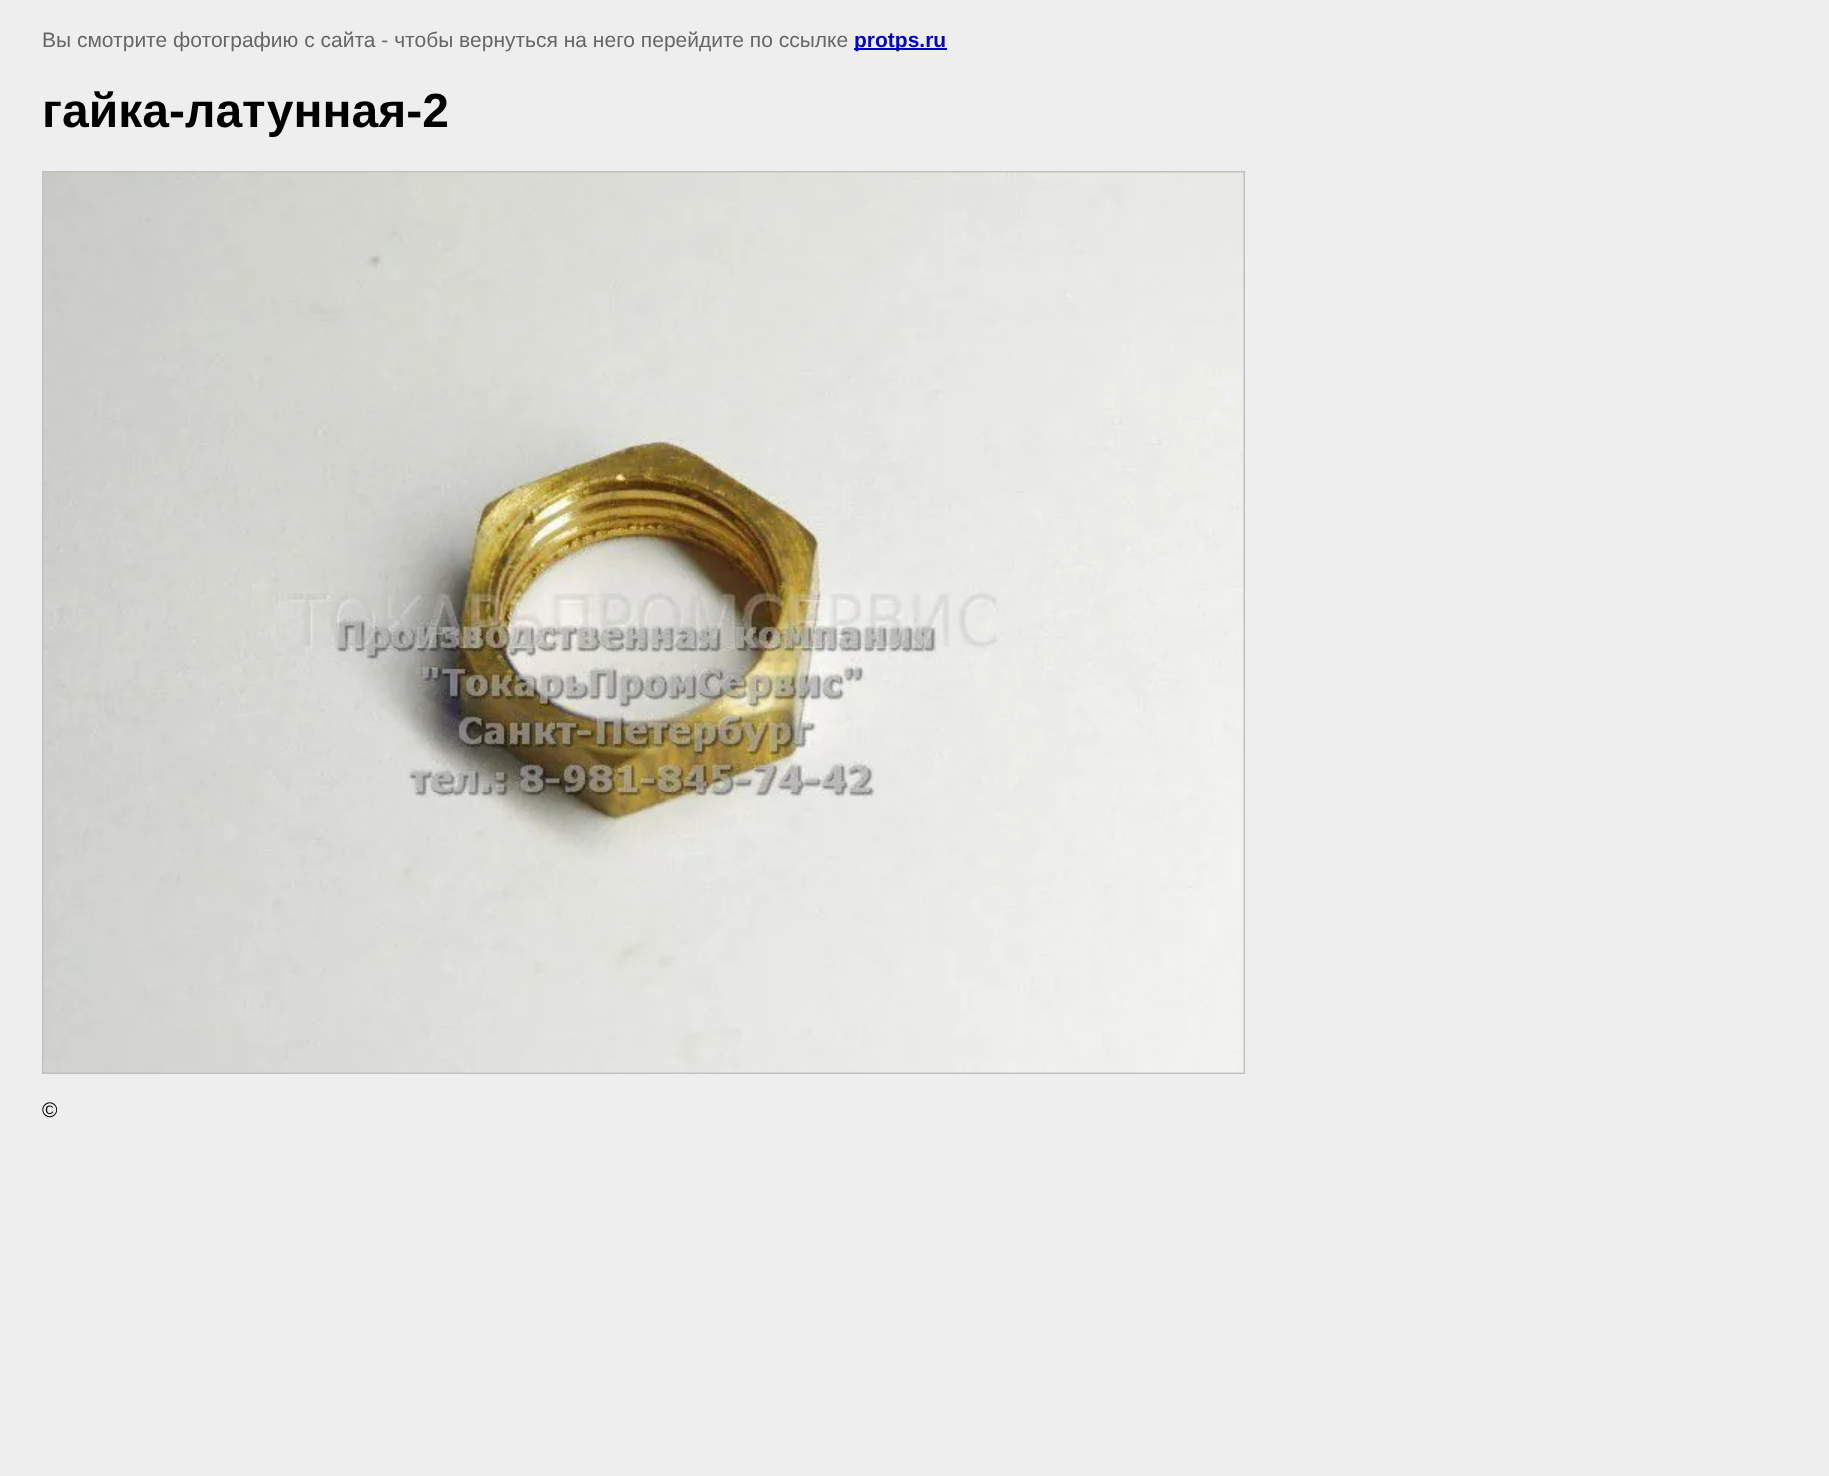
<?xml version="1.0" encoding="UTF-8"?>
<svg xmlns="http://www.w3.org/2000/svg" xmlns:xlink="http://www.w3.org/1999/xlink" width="1829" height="1476">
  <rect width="100%" height="100%" fill="#eeeeee" />
  <rect x="854" y="48" width="93" height="2" fill="#0000cc" />
  <rect x="43" y="172" width="1201" height="901" fill="none" stroke="#c0c0c0" stroke-width="2" />
  <image x="43" y="172" width="1201" height="901" xlink:href="image1.png" />
  <text x="42" y="47" style="font-family: Liberation Sans; font-size: 21px; fill: #666666">Вы смотрите фотографию с сайта - чтобы вернуться на него перейдите по ссылке</text>
  <text x="854" y="47" style="font-family: Liberation Sans; font-size: 21px; font-weight: bold; fill: #0000cc">protps.ru</text>
  <text x="42" y="127" style="font-family: Liberation Sans; font-size: 48px; font-weight: bold; fill: #000000">гайка-латунная-2</text>
  <text x="42" y="1117" style="font-family: Liberation Sans; font-size: 21px; fill: #000000">©</text>
</svg>
